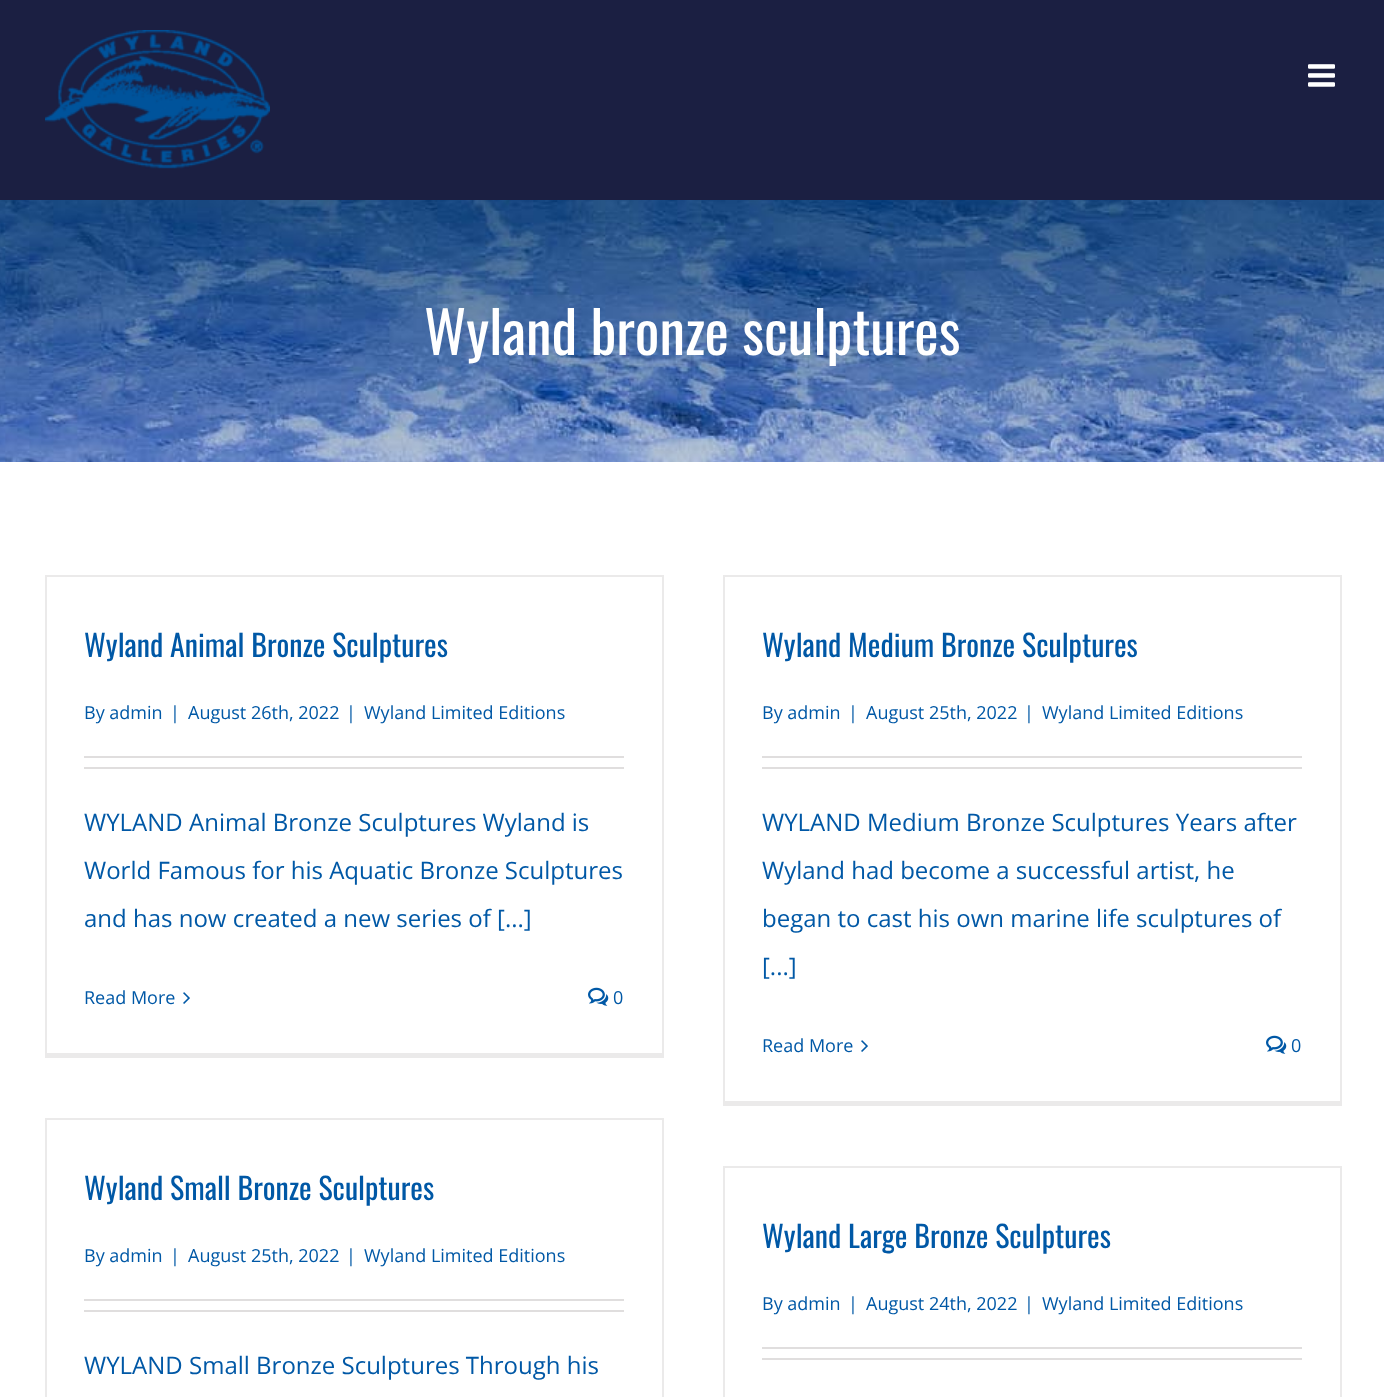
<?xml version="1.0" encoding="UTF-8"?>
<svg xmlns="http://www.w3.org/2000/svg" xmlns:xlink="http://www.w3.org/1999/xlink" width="1384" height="1397">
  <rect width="100%" height="100%" fill="#ffffff" />
  <rect width="1384" height="200" fill="#1b1f42" />
  <image x="45" y="30" width="225" height="139" xlink:href="image1.png" />
  <image x="1308" y="64" width="27" height="23" xlink:href="image2.png" />
  <image x="0" y="200" width="1384" height="262" xlink:href="image3.png" />
  <rect x="45" y="575" width="618" height="2" fill="#ebeaea" />
  <rect x="662" y="575" width="2" height="483" fill="#ebeaea" />
  <rect x="45" y="1053" width="618" height="5" fill="#ebeaea" />
  <rect x="45" y="575" width="2" height="483" fill="#ebeaea" />
  <rect x="84" y="756" width="540" height="2" fill="#e0dede" />
  <rect x="84" y="767" width="540" height="2" fill="#e0dede" />
  <image x="183" y="992" width="7" height="12" xlink:href="image4.png" />
  <image x="588" y="987" width="21" height="19" xlink:href="image5.png" />
  <rect x="723" y="575" width="618" height="2" fill="#ebeaea" />
  <rect x="1340" y="575" width="2" height="531" fill="#ebeaea" />
  <rect x="723" y="1101" width="618" height="5" fill="#ebeaea" />
  <rect x="723" y="575" width="2" height="531" fill="#ebeaea" />
  <rect x="762" y="756" width="540" height="2" fill="#e0dede" />
  <rect x="762" y="767" width="540" height="2" fill="#e0dede" />
  <image x="861" y="1040" width="7" height="12" xlink:href="image4.png" />
  <image x="1266" y="1035" width="21" height="19" xlink:href="image5.png" />
  <rect x="45" y="1118" width="618" height="2" fill="#ebeaea" />
  <rect x="662" y="1118" width="2" height="279" fill="#ebeaea" />
  <rect x="45" y="1118" width="2" height="279" fill="#ebeaea" />
  <rect x="84" y="1299" width="540" height="2" fill="#e0dede" />
  <rect x="84" y="1310" width="540" height="2" fill="#e0dede" />
  <rect x="723" y="1166" width="618" height="2" fill="#ebeaea" />
  <rect x="1340" y="1166" width="2" height="231" fill="#ebeaea" />
  <rect x="723" y="1166" width="2" height="231" fill="#ebeaea" />
  <rect x="762" y="1347" width="540" height="2" fill="#e0dede" />
  <rect x="762" y="1358" width="540" height="2" fill="#e0dede" />
  <text x="424" y="355" style="font-family: Oswald; font-size: 58px; fill: #ffffff">Wyland bronze sculptures</text>
  <text x="84" y="657" style="font-family: Oswald; font-size: 30px; fill: #0058a6">Wyland Animal Bronze Sculptures</text>
  <text x="84" y="719" style="font-family: Open Sans; font-size: 18px; fill: #0058a6">By admin</text>
  <text x="170" y="719" style="font-family: Open Sans; font-size: 18px; fill: #0058a6">|</text>
  <text x="188" y="719" style="font-family: Open Sans; font-size: 18px; fill: #0058a6">August 26th, 2022</text>
  <text x="346" y="719" style="font-family: Open Sans; font-size: 18px; fill: #0058a6">|</text>
  <text x="364" y="719" style="font-family: Open Sans; font-size: 18px; fill: #0058a6">Wyland Limited Editions</text>
  <text x="84" y="831" style="font-family: Open Sans; font-size: 24px; fill: #0058a6">WYLAND Animal Bronze Sculptures Wyland is</text>
  <text x="84" y="879" style="font-family: Open Sans; font-size: 24px; fill: #0058a6">World Famous for his Aquatic Bronze Sculptures</text>
  <text x="84" y="927" style="font-family: Open Sans; font-size: 24px; fill: #0058a6">and has now created a new series of [...]</text>
  <text x="84" y="1004" style="font-family: Open Sans; font-size: 18px; fill: #0058a6">Read More</text>
  <text x="613" y="1004" style="font-family: Open Sans; font-size: 18px; fill: #0058a6">0</text>
  <text x="762" y="657" style="font-family: Oswald; font-size: 30px; fill: #0058a6">Wyland Medium Bronze Sculptures</text>
  <text x="762" y="719" style="font-family: Open Sans; font-size: 18px; fill: #0058a6">By admin</text>
  <text x="848" y="719" style="font-family: Open Sans; font-size: 18px; fill: #0058a6">|</text>
  <text x="866" y="719" style="font-family: Open Sans; font-size: 18px; fill: #0058a6">August 25th, 2022</text>
  <text x="1024" y="719" style="font-family: Open Sans; font-size: 18px; fill: #0058a6">|</text>
  <text x="1042" y="719" style="font-family: Open Sans; font-size: 18px; fill: #0058a6">Wyland Limited Editions</text>
  <text x="762" y="831" style="font-family: Open Sans; font-size: 24px; fill: #0058a6">WYLAND Medium Bronze Sculptures Years after</text>
  <text x="762" y="879" style="font-family: Open Sans; font-size: 24px; fill: #0058a6">Wyland had become a successful artist, he</text>
  <text x="762" y="927" style="font-family: Open Sans; font-size: 24px; fill: #0058a6">began to cast his own marine life sculptures of</text>
  <text x="762" y="975" style="font-family: Open Sans; font-size: 24px; fill: #0058a6">[...]</text>
  <text x="762" y="1052" style="font-family: Open Sans; font-size: 18px; fill: #0058a6">Read More</text>
  <text x="1291" y="1052" style="font-family: Open Sans; font-size: 18px; fill: #0058a6">0</text>
  <text x="84" y="1200" style="font-family: Oswald; font-size: 30px; fill: #0058a6">Wyland Small Bronze Sculptures</text>
  <text x="84" y="1262" style="font-family: Open Sans; font-size: 18px; fill: #0058a6">By admin</text>
  <text x="170" y="1262" style="font-family: Open Sans; font-size: 18px; fill: #0058a6">|</text>
  <text x="188" y="1262" style="font-family: Open Sans; font-size: 18px; fill: #0058a6">August 25th, 2022</text>
  <text x="346" y="1262" style="font-family: Open Sans; font-size: 18px; fill: #0058a6">|</text>
  <text x="364" y="1262" style="font-family: Open Sans; font-size: 18px; fill: #0058a6">Wyland Limited Editions</text>
  <text x="84" y="1374" style="font-family: Open Sans; font-size: 24px; fill: #0058a6">WYLAND Small Bronze Sculptures Through his</text>
  <text x="762" y="1248" style="font-family: Oswald; font-size: 30px; fill: #0058a6">Wyland Large Bronze Sculptures</text>
  <text x="762" y="1310" style="font-family: Open Sans; font-size: 18px; fill: #0058a6">By admin</text>
  <text x="848" y="1310" style="font-family: Open Sans; font-size: 18px; fill: #0058a6">|</text>
  <text x="866" y="1310" style="font-family: Open Sans; font-size: 18px; fill: #0058a6">August 24th, 2022</text>
  <text x="1024" y="1310" style="font-family: Open Sans; font-size: 18px; fill: #0058a6">|</text>
  <text x="1042" y="1310" style="font-family: Open Sans; font-size: 18px; fill: #0058a6">Wyland Limited Editions</text>
</svg>
